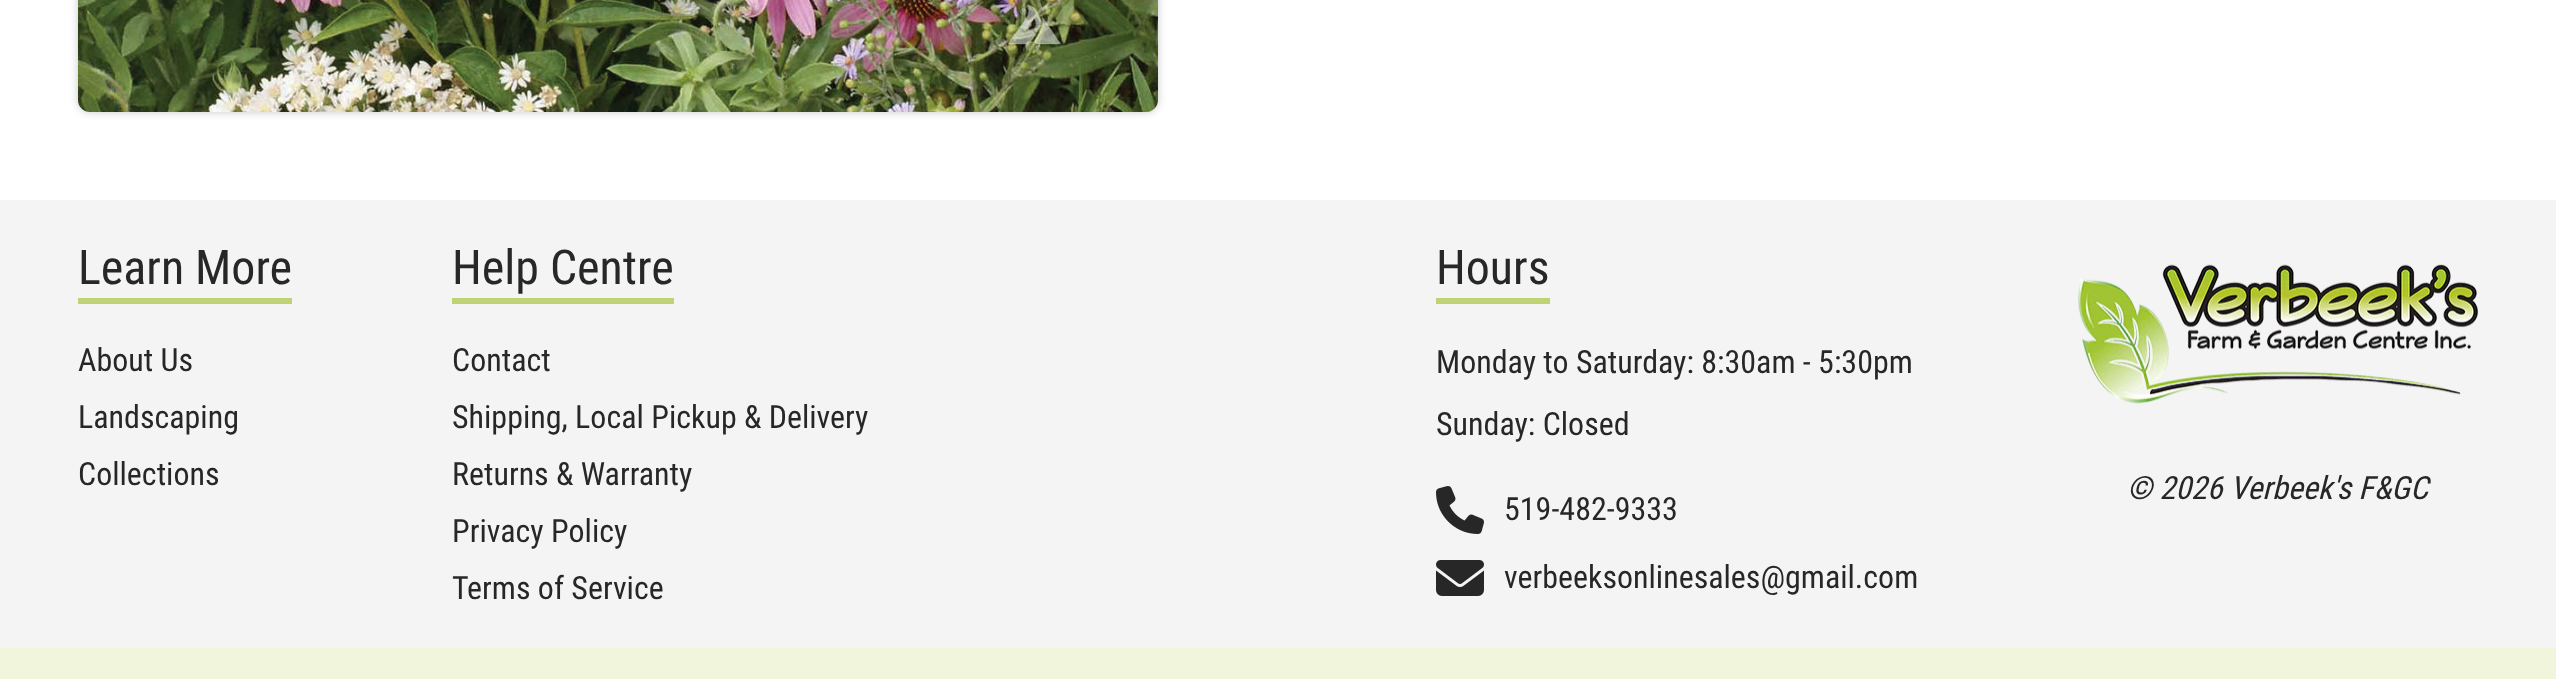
<?xml version="1.0" encoding="UTF-8"?>
<svg xmlns="http://www.w3.org/2000/svg" xmlns:xlink="http://www.w3.org/1999/xlink" width="2556" height="679">
  <rect width="100%" height="100%" fill="#ffffff" />
  <rect x="78" y="-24" width="1080" height="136" rx="12" fill="#000000" fill-opacity="0.21" filter="blur(4px)" />
  <image x="78" y="0" width="1080" height="112" xlink:href="image1.png" />
  <rect y="200" width="2556" height="448" fill="#f4f4f4" />
  <rect x="78" y="298" width="214" height="6" fill="#bfd375" />
  <rect x="452" y="298" width="222" height="6" fill="#bfd375" />
  <rect x="1436" y="298" width="114" height="6" fill="#bfd375" />
  <image x="1436" y="486" width="48" height="48" xlink:href="image2.png" />
  <image x="1436" y="560" width="48" height="36" xlink:href="image3.png" />
  <image x="2078" y="264" width="400" height="140" xlink:href="image4.png" />
  <rect y="648" width="2556" height="31" fill="#f0f5dc" />
  <text x="78" y="284" style="font-family: Roboto Condensed; font-size: 48px; fill: #272727">Learn More</text>
  <text x="78" y="371" style="font-family: Roboto Condensed; font-size: 32px; fill: #272727">About Us</text>
  <text x="78" y="428" style="font-family: Roboto Condensed; font-size: 32px; fill: #272727">Landscaping</text>
  <text x="78" y="485" style="font-family: Roboto Condensed; font-size: 32px; fill: #272727">Collections</text>
  <text x="452" y="284" style="font-family: Roboto Condensed; font-size: 48px; fill: #272727">Help Centre</text>
  <text x="452" y="371" style="font-family: Roboto Condensed; font-size: 32px; fill: #272727">Contact</text>
  <text x="452" y="428" style="font-family: Roboto Condensed; font-size: 32px; fill: #272727">Shipping, Local Pickup &amp; Delivery</text>
  <text x="452" y="485" style="font-family: Roboto Condensed; font-size: 32px; fill: #272727">Returns &amp; Warranty</text>
  <text x="452" y="542" style="font-family: Roboto Condensed; font-size: 32px; fill: #272727">Privacy Policy</text>
  <text x="452" y="599" style="font-family: Roboto Condensed; font-size: 32px; fill: #272727">Terms of Service</text>
  <text x="1436" y="284" style="font-family: Roboto Condensed; font-size: 48px; fill: #272727">Hours</text>
  <text x="1436" y="373" style="font-family: Roboto Condensed; font-size: 32px; fill: #272727">Monday to Saturday: 8:30am - 5:30pm</text>
  <text x="1436" y="435" style="font-family: Roboto Condensed; font-size: 32px; fill: #272727">Sunday: Closed</text>
  <text x="1504" y="520" style="font-family: Roboto Condensed; font-size: 32px; fill: #272727">519-482-9333</text>
  <text x="1504" y="588" style="font-family: Roboto Condensed; font-size: 32px; fill: #272727">verbeeksonlinesales@gmail.com</text>
  <text x="2127" y="499" style="font-family: Roboto Condensed; font-size: 32px; font-style: italic; fill: #272727">© 2026 Verbeek's F&amp;GC</text>
</svg>
